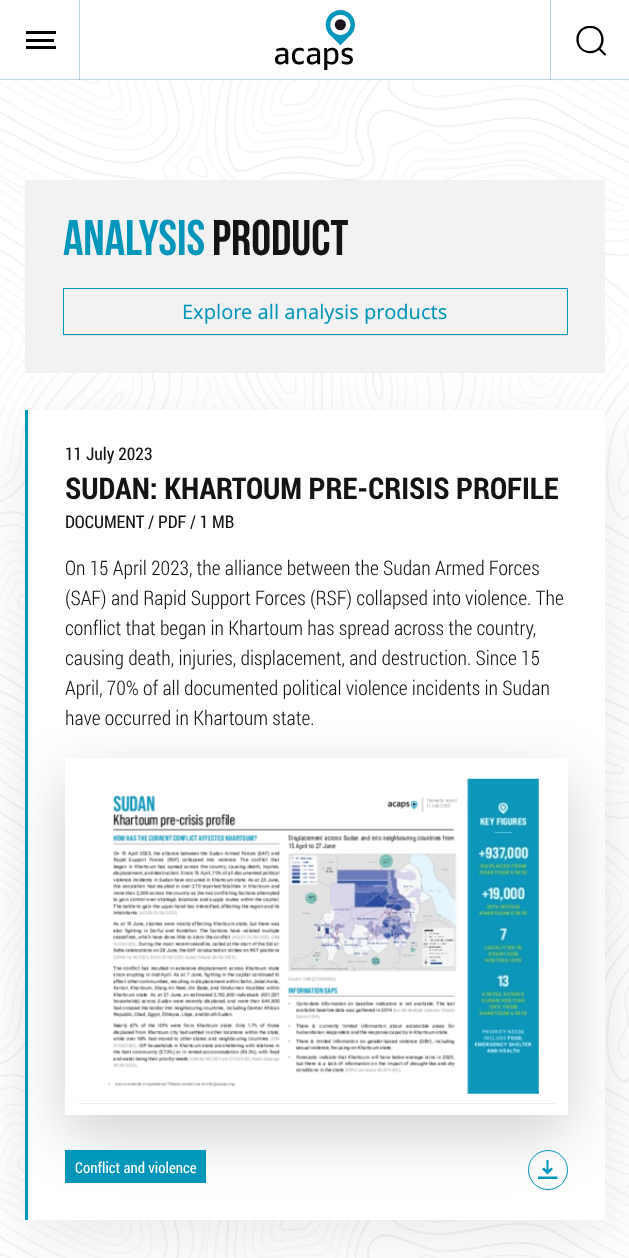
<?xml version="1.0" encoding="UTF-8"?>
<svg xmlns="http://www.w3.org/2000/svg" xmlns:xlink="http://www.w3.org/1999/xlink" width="629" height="1258">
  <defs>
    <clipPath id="clip1"><rect x="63" y="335" width="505" height="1" /></clipPath>
    <clipPath id="clip2"><path d="M 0 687 h 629 v 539 h -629 z m 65 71 h 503 v 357 h -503 z" clip-rule="evenodd" /></clipPath>
    <clipPath id="clip3"><path d="M 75 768 h 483 v 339 h -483 z m 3 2 h 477 v 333 h -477 z" clip-rule="evenodd" /></clipPath>
    <clipPath id="clip4"><path d="M 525 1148 h 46 v 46 h -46 z m 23 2 c 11 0 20 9 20 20 c 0 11 -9 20 -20 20 c -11 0 -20 -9 -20 -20 c 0 -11 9 -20 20 -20 z" clip-rule="evenodd" /></clipPath>
  </defs>
  <rect width="100%" height="100%" fill="#ffffff" />
  <rect x="550" width="1" height="80" fill="#c2d4df" />
  <rect x="79" width="1" height="80" fill="#c2d4df" />
  <rect y="79" width="629" height="1" fill="#c2d4df" />
  <rect x="550" y="79" width="1" height="1" fill="#93b3c6" />
  <rect x="79" y="79" width="1" height="1" fill="#93b3c6" />
  <rect x="26" y="39" width="28" height="3" fill="#000000" />
  <rect x="26" y="31" width="30" height="3" fill="#000000" />
  <rect x="26" y="46" width="30" height="3" fill="#000000" />
  <image x="275" y="10" width="80" height="60" xlink:href="image1.png" />
  <path d="M 606 55 c -1 1.5 -3 -1 -3.5 -1.5 l -3.5 -3.5 c -9.5 8 -24.5 0 -22.5 -13 c 0.5 -3 2 -6 4.5 -8 c 3 -2.5 5 -3 9 -3 h 3 c 10 2 14 15 7.5 22.5 l 5.5 5.5 z m -16 -27 c 15 0 15 23 0 23 c -15 0 -15 -23 0 -23 z" fill="#000000" fill-rule="evenodd" />
  <image x="0" y="80" width="629" height="1178" xlink:href="image2.png" />
  <rect x="25" y="180" width="580" height="193" fill="#f2f2f2" />
  <g clip-path="url(#clip1)">
    <rect x="63" y="289" width="505" height="47" fill="#000000" fill-opacity="0.07" filter="blur(0.5px)" />
  </g>
  <rect x="63.5" y="288.5" width="504" height="46" fill="none" stroke="#0096ba" />
  <rect x="25" y="430" width="580" height="810" fill="#000000" fill-opacity="0.08" filter="blur(30px)" />
  <rect x="28" y="410" width="577" height="810" fill="#ffffff" />
  <rect x="25" y="410" width="3" height="810" fill="#0096ba" />
  <g clip-path="url(#clip2)">
    <rect x="65" y="778" width="503" height="357" fill="#000000" fill-opacity="0.18" filter="blur(30px)" />
  </g>
  <g clip-path="url(#clip3)">
    <rect x="78" y="771" width="477" height="333" fill="#000000" fill-opacity="0.07" filter="blur(0.5px)" />
  </g>
  <image x="108" y="778" width="431" height="316" xlink:href="image3.png" />
  <rect x="65" y="1150" width="141" height="33" fill="#0096ba" />
  <g clip-path="url(#clip4)">
    <rect x="528" y="1151" width="40" height="40" rx="20" fill="#000000" fill-opacity="0.07" filter="blur(0.5px)" />
  </g>
  <path d="M 557.5 1176.5 v 2.5 h -19.5 v -2.5 z m -9 -16.5 h -2 v 10 l -2.5 -2.5 l -2 1.5 l 5.5 5.5 l 5.5 -5.5 l -2 -1.5 l -2.5 2.5 z" fill="#0096ba" fill-rule="evenodd" />
  <circle cx="548" cy="1170" r="19.5" fill="none" stroke="#0096ba" />
  <text x="63" y="255" style="font-family: Bebas Neue; font-size: 50px; font-weight: bold; fill: #0096ba">ANALYSIS</text>
  <text x="212" y="255" style="font-family: Bebas Neue; font-size: 50px; font-weight: bold; fill: #131415">PRODUCT</text>
  <text x="182" y="319" style="font-family: Noto Sans; font-size: 20px; fill: #0096ba">Explore all analysis products</text>
  <text x="65" y="460" style="font-family: Roboto Condensed; font-size: 17.5px; fill: #131415">11 July 2023</text>
  <text x="65" y="499" style="font-family: Roboto Condensed; font-size: 30px; font-weight: bold; fill: #131415">SUDAN: KHARTOUM PRE-CRISIS PROFILE</text>
  <text x="65" y="528" style="font-family: Roboto Condensed; font-size: 17.5px; fill: #131415">DOCUMENT / PDF / 1 MB</text>
  <text x="65" y="575" style="font-family: Roboto Condensed; font-size: 20px; font-weight: 300; fill: #131415">On 15 April 2023, the alliance between the Sudan Armed Forces</text>
  <text x="65" y="605" style="font-family: Roboto Condensed; font-size: 20px; font-weight: 300; fill: #131415">(SAF) and Rapid Support Forces (RSF) collapsed into violence. The</text>
  <text x="65" y="635" style="font-family: Roboto Condensed; font-size: 20px; font-weight: 300; fill: #131415">conflict that began in Khartoum has spread across the country,</text>
  <text x="65" y="665" style="font-family: Roboto Condensed; font-size: 20px; font-weight: 300; fill: #131415">causing death, injuries, displacement, and destruction. Since 15</text>
  <text x="65" y="695" style="font-family: Roboto Condensed; font-size: 20px; font-weight: 300; fill: #131415">April, 70% of all documented political violence incidents in Sudan</text>
  <text x="65" y="725" style="font-family: Roboto Condensed; font-size: 20px; font-weight: 300; fill: #131415">have occurred in Khartoum state.</text>
  <text x="75" y="1173" style="font-family: Roboto Condensed; font-size: 15px; fill: #ffffff">Conflict and violence</text>
</svg>
